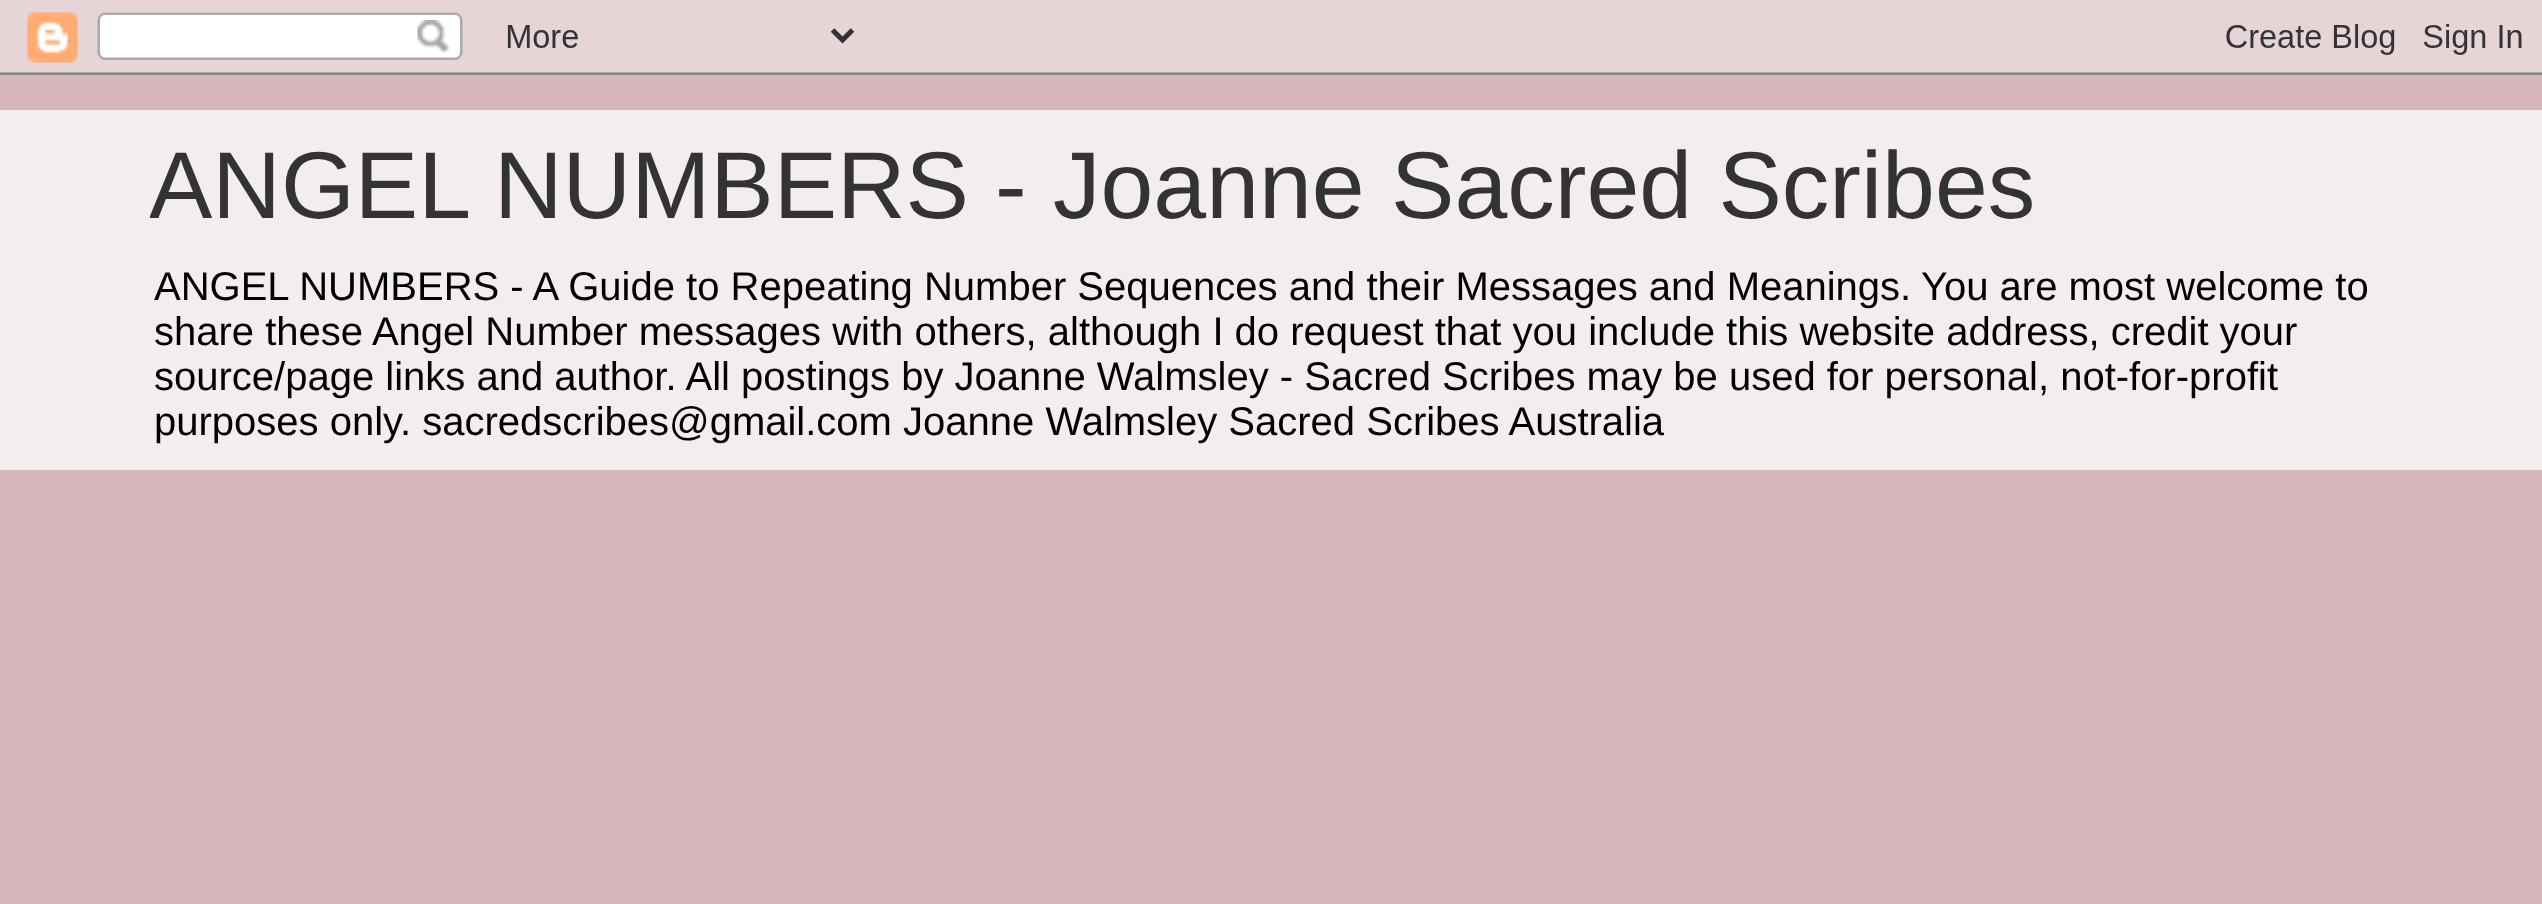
<?xml version="1.0" encoding="UTF-8"?>
<svg xmlns="http://www.w3.org/2000/svg" xmlns:xlink="http://www.w3.org/1999/xlink" width="2542" height="904">
  <defs>
    <clipPath id="clip1"><rect x="150" y="110" width="2245" height="360" /></clipPath>
  </defs>
  <rect width="100%" height="100%" fill="#d5b7bc" />
  <image x="0" y="0" width="2542" height="75" xlink:href="image1.png" />
  <rect y="110" width="2542" height="360" fill="#f4edef" />
  <g clip-path="url(#clip1)">
    <text x="149" y="218" style="font-family: Liberation Sans; font-size: 95px; fill: #333333">ANGEL NUMBERS</text>
  </g>
  <text x="995" y="218" style="font-family: Liberation Sans; font-size: 95px; fill: #333333">- Joanne Sacred Scribes</text>
  <text x="154" y="300" style="font-family: Liberation Sans; font-size: 40px; fill: #000000">ANGEL NUMBERS - A Guide to Repeating Number Sequences and their Messages and Meanings.</text>
  <text x="1921" y="300" style="font-family: Liberation Sans; font-size: 40px; fill: #000000">You are most welcome to</text>
  <text x="154" y="345" style="font-family: Liberation Sans; font-size: 40px; fill: #000000">share these Angel Number messages with others, although I do request that you include this website address, credit your</text>
  <text x="154" y="390" style="font-family: Liberation Sans; font-size: 40px; fill: #000000">source/page links and author. All postings by Joanne Walmsley - Sacred Scribes may be used for personal, not-for-profit</text>
  <text x="154" y="435" style="font-family: Liberation Sans; font-size: 40px; fill: #000000">purposes only. sacredscribes@gmail.com Joanne Walmsley Sacred Scribes Australia</text>
</svg>
